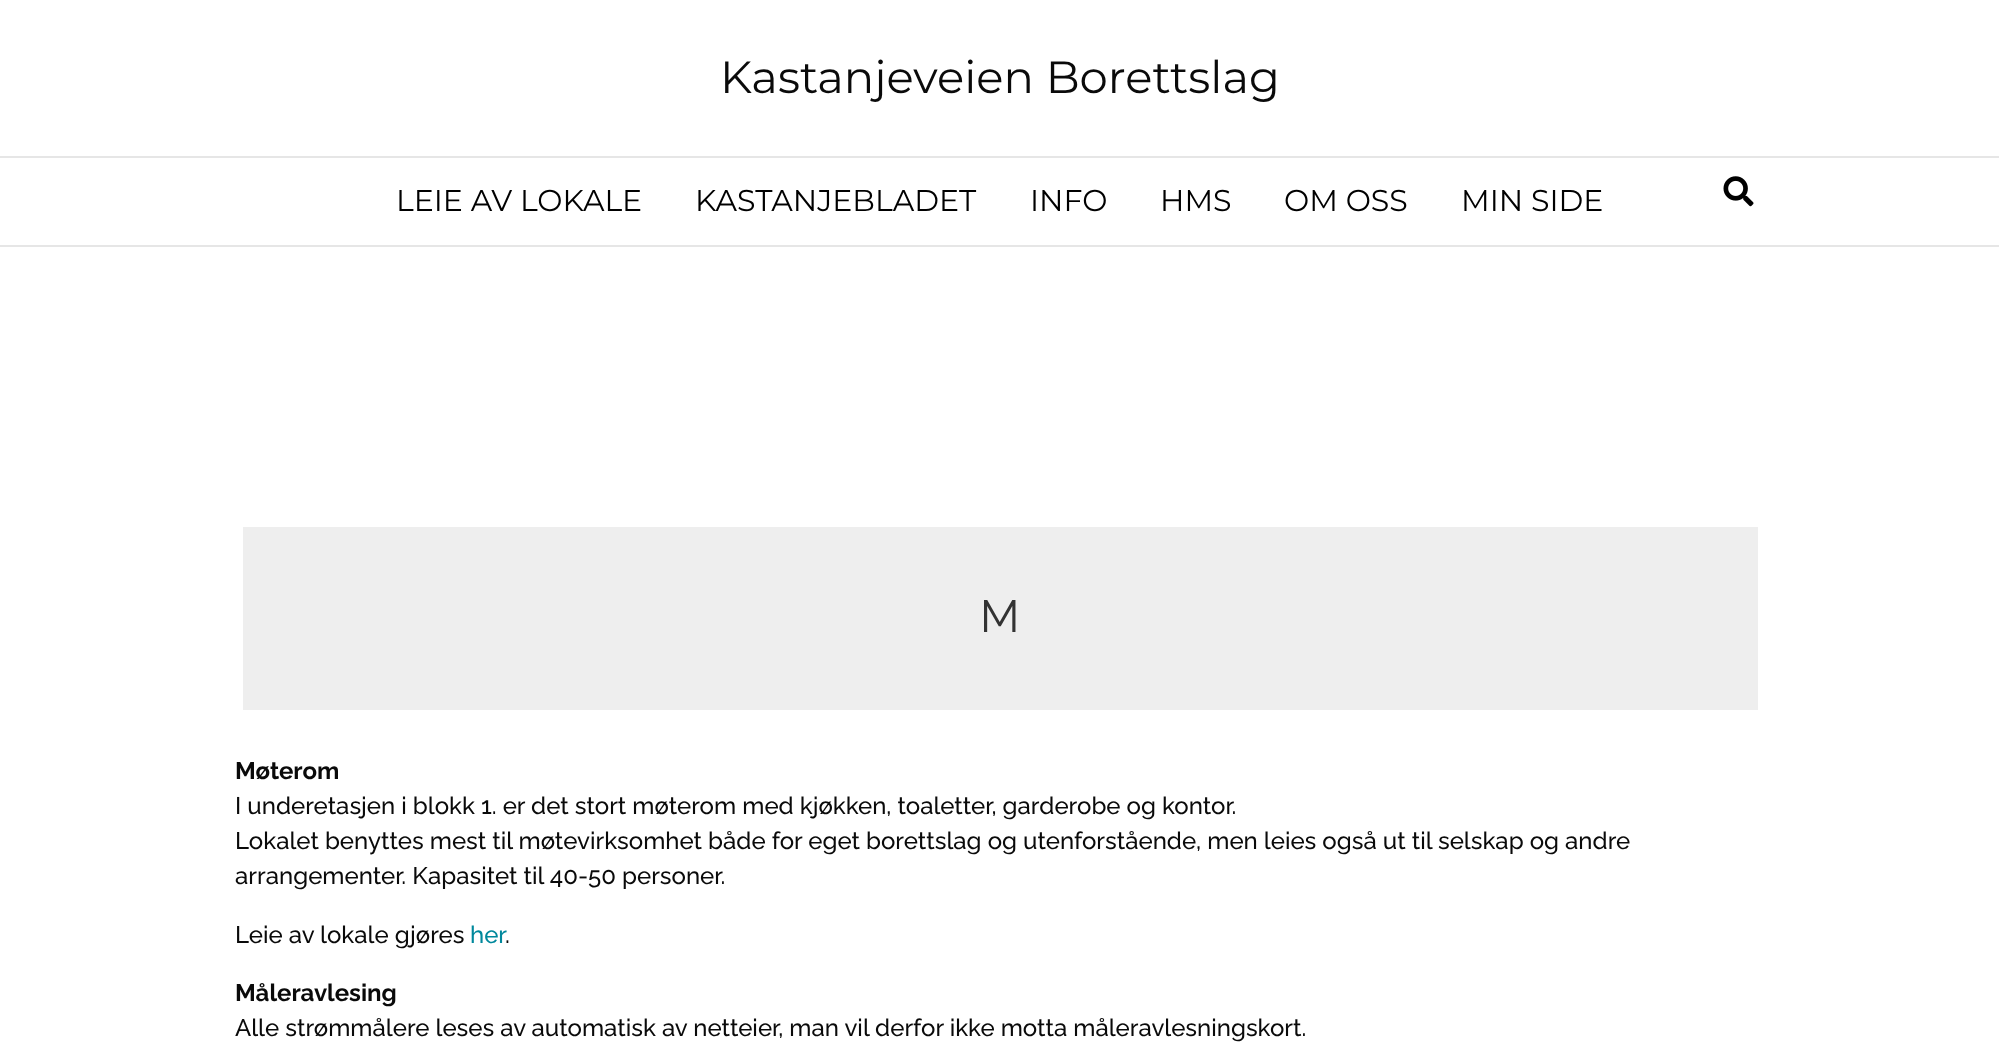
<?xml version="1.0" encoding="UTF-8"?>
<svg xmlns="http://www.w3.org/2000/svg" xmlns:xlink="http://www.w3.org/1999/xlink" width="1999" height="1045">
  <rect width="100%" height="100%" fill="#ffffff" />
  <rect y="156" width="1999" height="2" fill="#e6e6e6" />
  <rect y="245" width="1999" height="2" fill="#e6e6e6" />
  <image x="1723" y="176" width="31" height="31" xlink:href="image1.png" />
  <rect x="243" y="527" width="1515" height="183" fill="#eeeeee" />
  <text x="720" y="93" style="font-family: Montserrat; font-size: 45px; font-weight: 100; fill: #0a0a0a">Kastanjeveien Borettslag</text>
  <text x="396" y="211" style="font-family: Montserrat; font-size: 30px; font-weight: 100; fill: #000000">LEIE AV LOKALE</text>
  <text x="695" y="211" style="font-family: Montserrat; font-size: 30px; font-weight: 100; fill: #000000">KASTANJEBLADET</text>
  <text x="1030" y="211" style="font-family: Montserrat; font-size: 30px; font-weight: 100; fill: #000000">INFO</text>
  <text x="1160" y="211" style="font-family: Montserrat; font-size: 30px; font-weight: 100; fill: #000000">HMS</text>
  <text x="1284" y="211" style="font-family: Montserrat; font-size: 30px; font-weight: 100; fill: #000000">OM OSS</text>
  <text x="1461" y="211" style="font-family: Montserrat; font-size: 30px; font-weight: 100; fill: #000000">MIN SIDE</text>
  <text x="980" y="632" style="font-family: Raleway; font-size: 45px; fill: #333333">M</text>
  <text x="235" y="779" style="font-family: Raleway; font-size: 24px; font-weight: bold; fill: #0a0a0a">Møterom</text>
  <text x="235" y="814" style="font-family: Raleway; font-size: 24px; font-weight: 500; fill: #0a0a0a">I underetasjen i blokk 1. er det stort møterom med kjøkken, toaletter, garderobe og kontor.</text>
  <text x="235" y="849" style="font-family: Raleway; font-size: 24px; font-weight: 500; fill: #0a0a0a">Lokalet benyttes mest til møtevirksomhet både for eget borettslag og utenforstående, men leies også ut til selskap og andre</text>
  <text x="235" y="884" style="font-family: Raleway; font-size: 24px; font-weight: 500; fill: #0a0a0a">arrangementer. Kapasitet til 40-50 personer.</text>
  <text x="235" y="943" style="font-family: Raleway; font-size: 24px; font-weight: 500; fill: #0a0a0a">Leie av lokale gjøres</text>
  <text x="470" y="943" style="font-family: Raleway; font-size: 24px; font-weight: 500; fill: #00889c">her</text>
  <text x="505" y="943" style="font-family: Raleway; font-size: 24px; font-weight: 500; fill: #0a0a0a">.</text>
  <text x="235" y="1001" style="font-family: Raleway; font-size: 24px; font-weight: bold; fill: #0a0a0a">Måleravlesing</text>
  <text x="235" y="1036" style="font-family: Raleway; font-size: 24px; font-weight: 500; fill: #0a0a0a">Alle strømmålere leses av automatisk av netteier, man vil derfor ikke motta måleravlesningskort.</text>
</svg>
